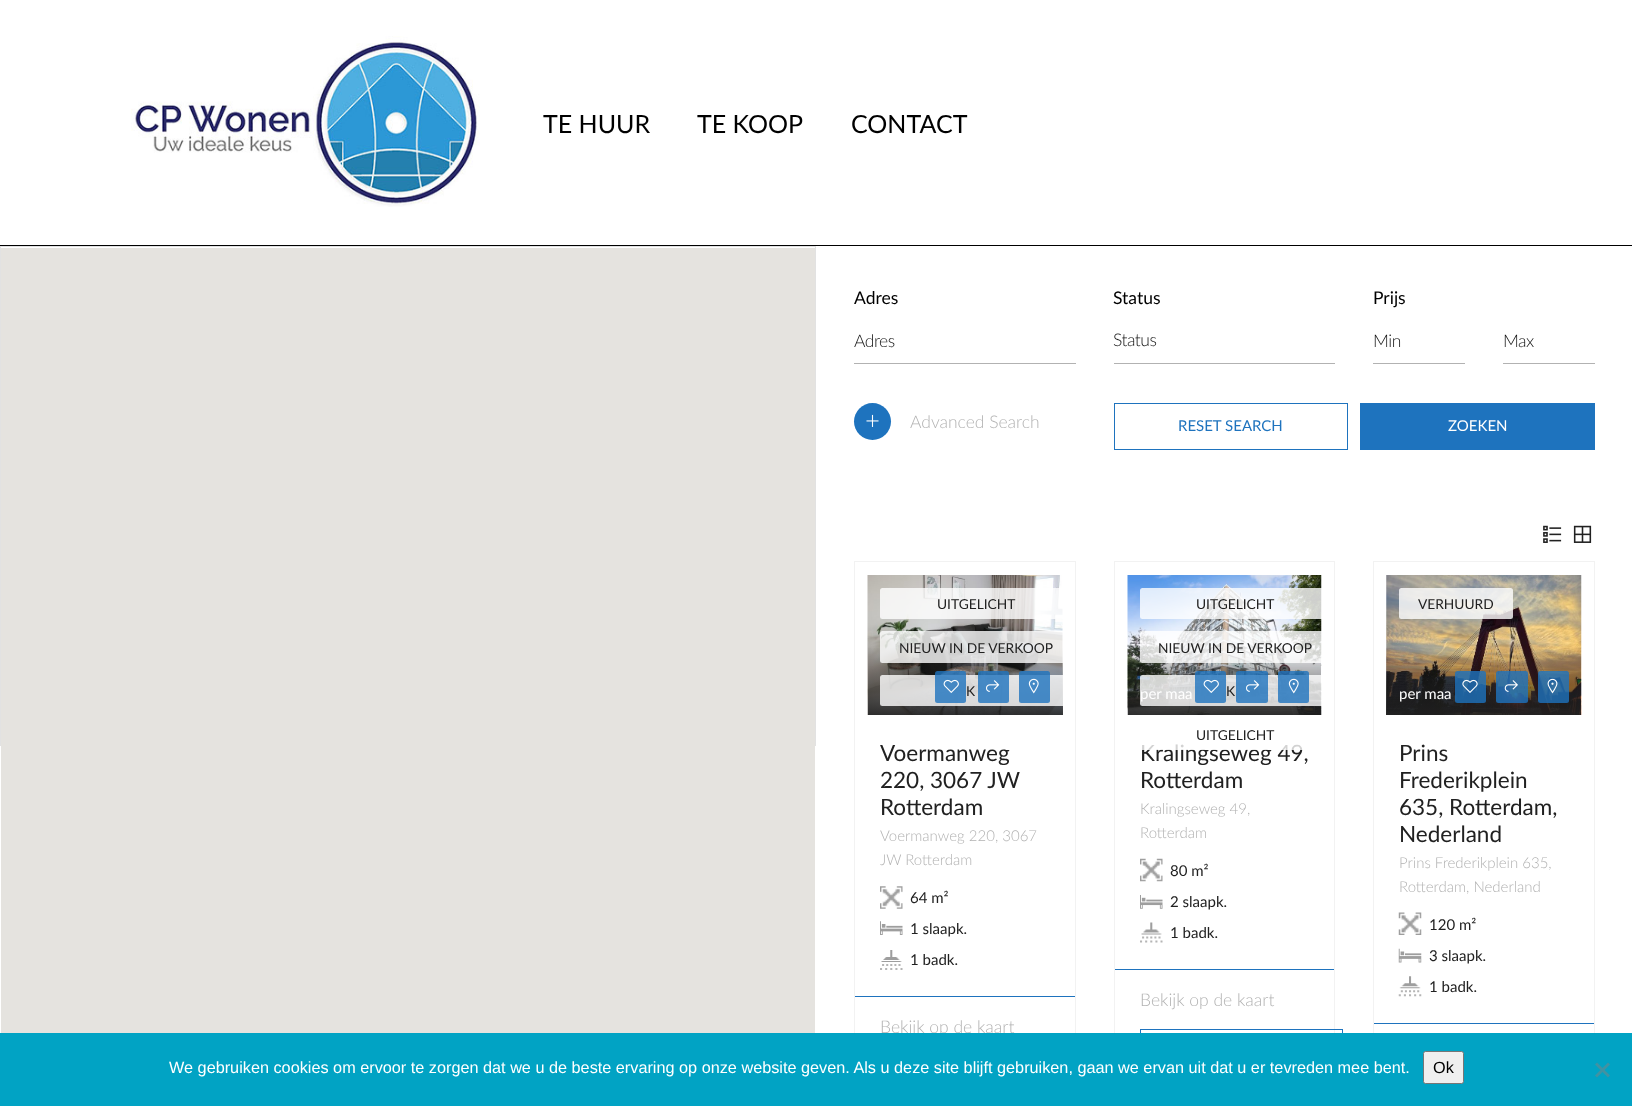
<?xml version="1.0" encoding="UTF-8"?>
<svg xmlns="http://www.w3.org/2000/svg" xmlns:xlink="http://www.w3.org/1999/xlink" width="1632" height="1106">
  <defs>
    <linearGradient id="g1" gradientUnits="userSpaceOnUse" x1="965" y1="715" x2="965" y2="575"><stop offset="0" stop-color="#171717" stop-opacity="0.9" /><stop offset="0" stop-color="#212121" stop-opacity="0.9" /><stop offset="0.49" stop-color="#212121" stop-opacity="0" /><stop offset="0.61" stop-color="#efefef" stop-opacity="0" /><stop offset="0.61" stop-color="#efefef" stop-opacity="0" /></linearGradient>
    <linearGradient id="g2" gradientUnits="userSpaceOnUse" x1="1484" y1="715" x2="1484" y2="575"><stop offset="0" stop-color="#171717" stop-opacity="0.9" /><stop offset="0" stop-color="#212121" stop-opacity="0.9" /><stop offset="0.49" stop-color="#212121" stop-opacity="0" /><stop offset="0.61" stop-color="#efefef" stop-opacity="0" /><stop offset="0.61" stop-color="#efefef" stop-opacity="0" /></linearGradient>
  </defs>
  <rect width="100%" height="100%" fill="#ffffff" />
  <rect y="245" width="1632" height="1" fill="#000000" />
  <image x="131" y="36" width="349" height="171" xlink:href="image1.png" />
  <rect x="0.5" y="246.5" width="815" height="499" fill="none" stroke="#e2e2e2" />
  <rect x="1" y="248" width="814" height="785" fill="#e5e3df" />
  <rect x="854" y="363" width="222" height="1" fill="#b2b2b2" />
  <rect x="1114" y="363" width="221" height="1" fill="#b2b2b2" />
  <rect x="1373" y="363" width="92" height="1" fill="#b2b2b2" />
  <rect x="1503" y="363" width="92" height="1" fill="#b2b2b2" />
  <circle cx="872.5" cy="421.5" r="18.5" fill="#1e73be" />
  <image x="866" y="414" width="13" height="13" xlink:href="image2.png" />
  <rect x="1114.5" y="403.5" width="233" height="46" fill="none" stroke="#1e73be" />
  <rect x="1360" y="403" width="235" height="47" fill="#1e73be" />
  <image x="1543" y="525" width="19" height="18" xlink:href="image3.png" />
  <image x="1573" y="525" width="19" height="18" xlink:href="image4.png" />
  <rect x="854.5" y="561.5" width="221" height="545" fill="none" stroke="#f2f2f2" />
  <image x="867" y="575" width="196" height="140" xlink:href="image5.png" />
  <rect x="880" y="588" width="191" height="31" rx="2.5" fill="#ffffff" fill-opacity="0.8" />
  <rect x="868" y="648" width="195" height="67" fill="url(#g1)" />
  <rect x="880" y="631" width="191" height="32" rx="2.5" fill="#ffffff" fill-opacity="0.8" />
  <rect x="880" y="675" width="191" height="31" rx="2.5" fill="#ffffff" fill-opacity="0.8" />
  <rect x="935" y="671" width="31" height="32" rx="2.5" fill="#1e73be" fill-opacity="0.8" />
  <image x="943" y="679" width="16" height="14" xlink:href="image6.png" />
  <rect x="978" y="671" width="31" height="32" rx="2.5" fill="#1e73be" fill-opacity="0.8" />
  <image x="986" y="680" width="14" height="12" xlink:href="image7.png" />
  <rect x="1019" y="671" width="31" height="32" rx="2.5" fill="#1e73be" fill-opacity="0.8" />
  <image x="1028" y="678" width="11" height="16" xlink:href="image8.png" />
  <rect x="855" y="996" width="220" height="1" fill="#1e73be" />
  <image x="880" y="886" width="23" height="23" xlink:href="image9.png" />
  <image x="880" y="921" width="23" height="14" xlink:href="image10.png" />
  <image x="880" y="950" width="23" height="20" xlink:href="image11.png" />
  <rect x="1114.5" y="561.5" width="220" height="541" fill="none" stroke="#f2f2f2" />
  <image x="1127" y="575" width="195" height="140" xlink:href="image12.png" />
  <rect x="1140" y="588" width="191" height="31" rx="2.5" fill="#ffffff" fill-opacity="0.8" />
  <rect x="1140" y="631" width="191" height="32" rx="2.5" fill="#ffffff" fill-opacity="0.8" />
  <rect x="1140" y="675" width="191" height="31" rx="2.5" fill="#ffffff" fill-opacity="0.8" />
  <rect x="1195" y="671" width="31" height="32" rx="2.5" fill="#1e73be" fill-opacity="0.8" />
  <image x="1203" y="679" width="16" height="14" xlink:href="image13.png" />
  <rect x="1236" y="671" width="32" height="32" rx="2.5" fill="#1e73be" fill-opacity="0.8" />
  <image x="1246" y="680" width="14" height="12" xlink:href="image14.png" />
  <rect x="1278" y="671" width="31" height="32" rx="2.5" fill="#1e73be" fill-opacity="0.8" />
  <image x="1288" y="678" width="11" height="16" xlink:href="image15.png" />
  <rect x="1115" y="969" width="219" height="1" fill="#1e73be" />
  <image x="1140" y="858" width="23" height="24" xlink:href="image16.png" />
  <image x="1140" y="895" width="23" height="14" xlink:href="image17.png" />
  <image x="1140" y="922" width="23" height="21" xlink:href="image18.png" />
  <rect x="1140.5" y="1029.5" width="202" height="46" fill="none" stroke="#1e73be" />
  <rect x="1373.5" y="561.5" width="221" height="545" fill="none" stroke="#f2f2f2" />
  <image x="1386" y="575" width="196" height="140" xlink:href="image19.png" />
  <rect x="1399" y="588" width="114" height="31" rx="2.5" fill="#ffffff" fill-opacity="0.8" />
  <rect x="1386" y="648" width="195" height="67" fill="url(#g2)" />
  <rect x="1455" y="671" width="31" height="32" rx="2.5" fill="#1e73be" fill-opacity="0.8" />
  <image x="1462" y="679" width="16" height="14" xlink:href="image20.png" />
  <rect x="1496" y="671" width="32" height="32" rx="2.5" fill="#1e73be" fill-opacity="0.8" />
  <image x="1504" y="680" width="14" height="12" xlink:href="image21.png" />
  <rect x="1538" y="671" width="31" height="32" rx="2.5" fill="#1e73be" fill-opacity="0.8" />
  <image x="1547" y="678" width="11" height="16" xlink:href="image22.png" />
  <rect x="1374" y="1023" width="220" height="1" fill="#1e73be" />
  <image x="1398" y="912" width="24" height="23" xlink:href="image23.png" />
  <image x="1398" y="948" width="24" height="15" xlink:href="image24.png" />
  <image x="1398" y="976" width="24" height="21" xlink:href="image25.png" />
  <text x="543" y="133" style="font-family: Lato; font-size: 25px; fill: #000000">TE HUUR</text>
  <text x="697" y="133" style="font-family: Lato; font-size: 25px; fill: #000000">TE KOOP</text>
  <text x="851" y="133" style="font-family: Lato; font-size: 25px; fill: #000000">CONTACT</text>
  <text x="854" y="304" style="font-family: Lato; font-size: 17.5px; fill: #000000">Adres</text>
  <text x="854" y="347" style="font-family: Lato; font-size: 17.5px; font-weight: 300; letter-spacing: -0.5px; fill: #141414">Adres</text>
  <text x="1113" y="304" style="font-family: Lato; font-size: 17.5px; fill: #000000">Status</text>
  <text x="1113" y="346" style="font-family: Lato; font-size: 17.5px; font-weight: 300; letter-spacing: -0.5px; fill: #141414">Status</text>
  <text x="1373" y="304" style="font-family: Lato; font-size: 17.5px; fill: #000000">Prijs</text>
  <text x="1373" y="347" style="font-family: Lato; font-size: 17.5px; font-weight: 300; letter-spacing: -0.5px; fill: #141414">Min</text>
  <text x="1503" y="347" style="font-family: Lato; font-size: 17.5px; font-weight: 300; letter-spacing: -0.5px; fill: #141414">Max</text>
  <text x="910" y="428" style="font-family: Lato; font-size: 17.5px; font-weight: 300; fill: #b2b2b2">Advanced Search</text>
  <text x="1178" y="431" style="font-family: Lato; font-size: 15px; fill: #1e73be">RESET SEARCH</text>
  <text x="1448" y="431" style="font-family: Lato; font-size: 15px; fill: #ffffff">ZOEKEN</text>
  <text x="937" y="609" style="font-family: Lato; font-size: 13.75px; fill: #212121">UITGELICHT</text>
  <text x="899" y="653" style="font-family: Lato; font-size: 13.75px; fill: #212121">NIEUW IN DE VERKOOP</text>
  <text x="966" y="696" style="font-family: Lato; font-size: 13.75px; fill: #212121">K</text>
  <text x="880" y="761" style="font-family: Lato; font-size: 22.5px; fill: #212121">Voermanweg</text>
  <text x="880" y="788" style="font-family: Lato; font-size: 22.5px; fill: #212121">220, 3067 JW</text>
  <text x="880" y="815" style="font-family: Lato; font-size: 22.5px; fill: #212121">Rotterdam</text>
  <text x="880" y="841" style="font-family: Lato; font-size: 15px; font-weight: 300; fill: #b2b2b2">Voermanweg 220, 3067</text>
  <text x="880" y="865" style="font-family: Lato; font-size: 15px; font-weight: 300; fill: #b2b2b2">JW Rotterdam</text>
  <text x="910" y="903" style="font-family: Lato; font-size: 15px; fill: #212121">64 m²</text>
  <text x="910" y="934" style="font-family: Lato; font-size: 15px; fill: #212121">1 slaapk.</text>
  <text x="910" y="965" style="font-family: Lato; font-size: 15px; fill: #212121">1 badk.</text>
  <text x="880" y="1033" style="font-family: Lato; font-size: 17.5px; font-weight: 300; fill: #b2b2b2">Bekijk op de kaart</text>
  <text x="1196" y="609" style="font-family: Lato; font-size: 13.75px; fill: #212121">UITGELICHT</text>
  <text x="1158" y="653" style="font-family: Lato; font-size: 13.75px; fill: #212121">NIEUW IN DE VERKOOP</text>
  <text x="1226" y="696" style="font-family: Lato; font-size: 13.75px; fill: #212121">K</text>
  <text x="1140" y="699" style="font-family: Lato; font-size: 15px; fill: #ffffff">per maa</text>
  <text x="1140" y="761" style="font-family: Lato; font-size: 22.5px; fill: #212121">Kralingseweg 49,</text>
  <rect x="1140" y="719" width="191" height="31" rx="2.5" fill="#ffffff" fill-opacity="0.8" />
  <text x="1196" y="740" style="font-family: Lato; font-size: 13.75px; fill: #212121">UITGELICHT</text>
  <text x="1140" y="788" style="font-family: Lato; font-size: 22.5px; fill: #212121">Rotterdam</text>
  <text x="1140" y="814" style="font-family: Lato; font-size: 15px; font-weight: 300; fill: #b2b2b2">Kralingseweg 49,</text>
  <text x="1140" y="838" style="font-family: Lato; font-size: 15px; font-weight: 300; fill: #b2b2b2">Rotterdam</text>
  <text x="1170" y="876" style="font-family: Lato; font-size: 15px; fill: #212121">80 m²</text>
  <text x="1170" y="907" style="font-family: Lato; font-size: 15px; fill: #212121">2 slaapk.</text>
  <text x="1170" y="938" style="font-family: Lato; font-size: 15px; fill: #212121">1 badk.</text>
  <text x="1140" y="1006" style="font-family: Lato; font-size: 17.5px; font-weight: 300; fill: #b2b2b2">Bekijk op de kaart</text>
  <text x="1418" y="609" style="font-family: Lato; font-size: 13.75px; fill: #212121">VERHUURD</text>
  <text x="1399" y="699" style="font-family: Lato; font-size: 15px; fill: #ffffff">per maa</text>
  <text x="1399" y="761" style="font-family: Lato; font-size: 22.5px; fill: #212121">Prins</text>
  <text x="1399" y="788" style="font-family: Lato; font-size: 22.5px; fill: #212121">Frederikplein</text>
  <text x="1399" y="815" style="font-family: Lato; font-size: 22.5px; fill: #212121">635, Rotterdam,</text>
  <text x="1399" y="842" style="font-family: Lato; font-size: 22.5px; fill: #212121">Nederland</text>
  <text x="1399" y="868" style="font-family: Lato; font-size: 15px; font-weight: 300; fill: #b2b2b2">Prins Frederikplein 635,</text>
  <text x="1399" y="892" style="font-family: Lato; font-size: 15px; font-weight: 300; fill: #b2b2b2">Rotterdam, Nederland</text>
  <text x="1429" y="930" style="font-family: Lato; font-size: 15px; fill: #212121">120 m²</text>
  <text x="1429" y="961" style="font-family: Lato; font-size: 15px; fill: #212121">3 slaapk.</text>
  <text x="1429" y="992" style="font-family: Lato; font-size: 15px; fill: #212121">1 badk.</text>
  <rect y="1033" width="1632" height="73" fill="#01a3c4" />
  <text x="169" y="1073" style="font-family: Liberation Sans; font-size: 16.25px; fill: #ffffff">We gebruiken cookies om ervoor te zorgen dat we u de beste ervaring op onze website geven. Als u deze site blijft gebruiken, gaan we ervan uit dat u er tevreden mee bent.</text>
  <rect x="1423.5" y="1051.5" width="40" height="32" rx="2" fill="#efefef" stroke="#767676" />
  <text x="1433" y="1073" style="font-family: Liberation Sans; font-size: 16.25px; fill: #000000">Ok</text>
  <path d="M 1608 1062.5 l 2 2 l -13 13 l -2 -2 z" fill="#4192a2" />
  <path d="M 1595 1064.5 l 2 -2 l 13 13 l -2 2 z" fill="#4192a2" />
</svg>
